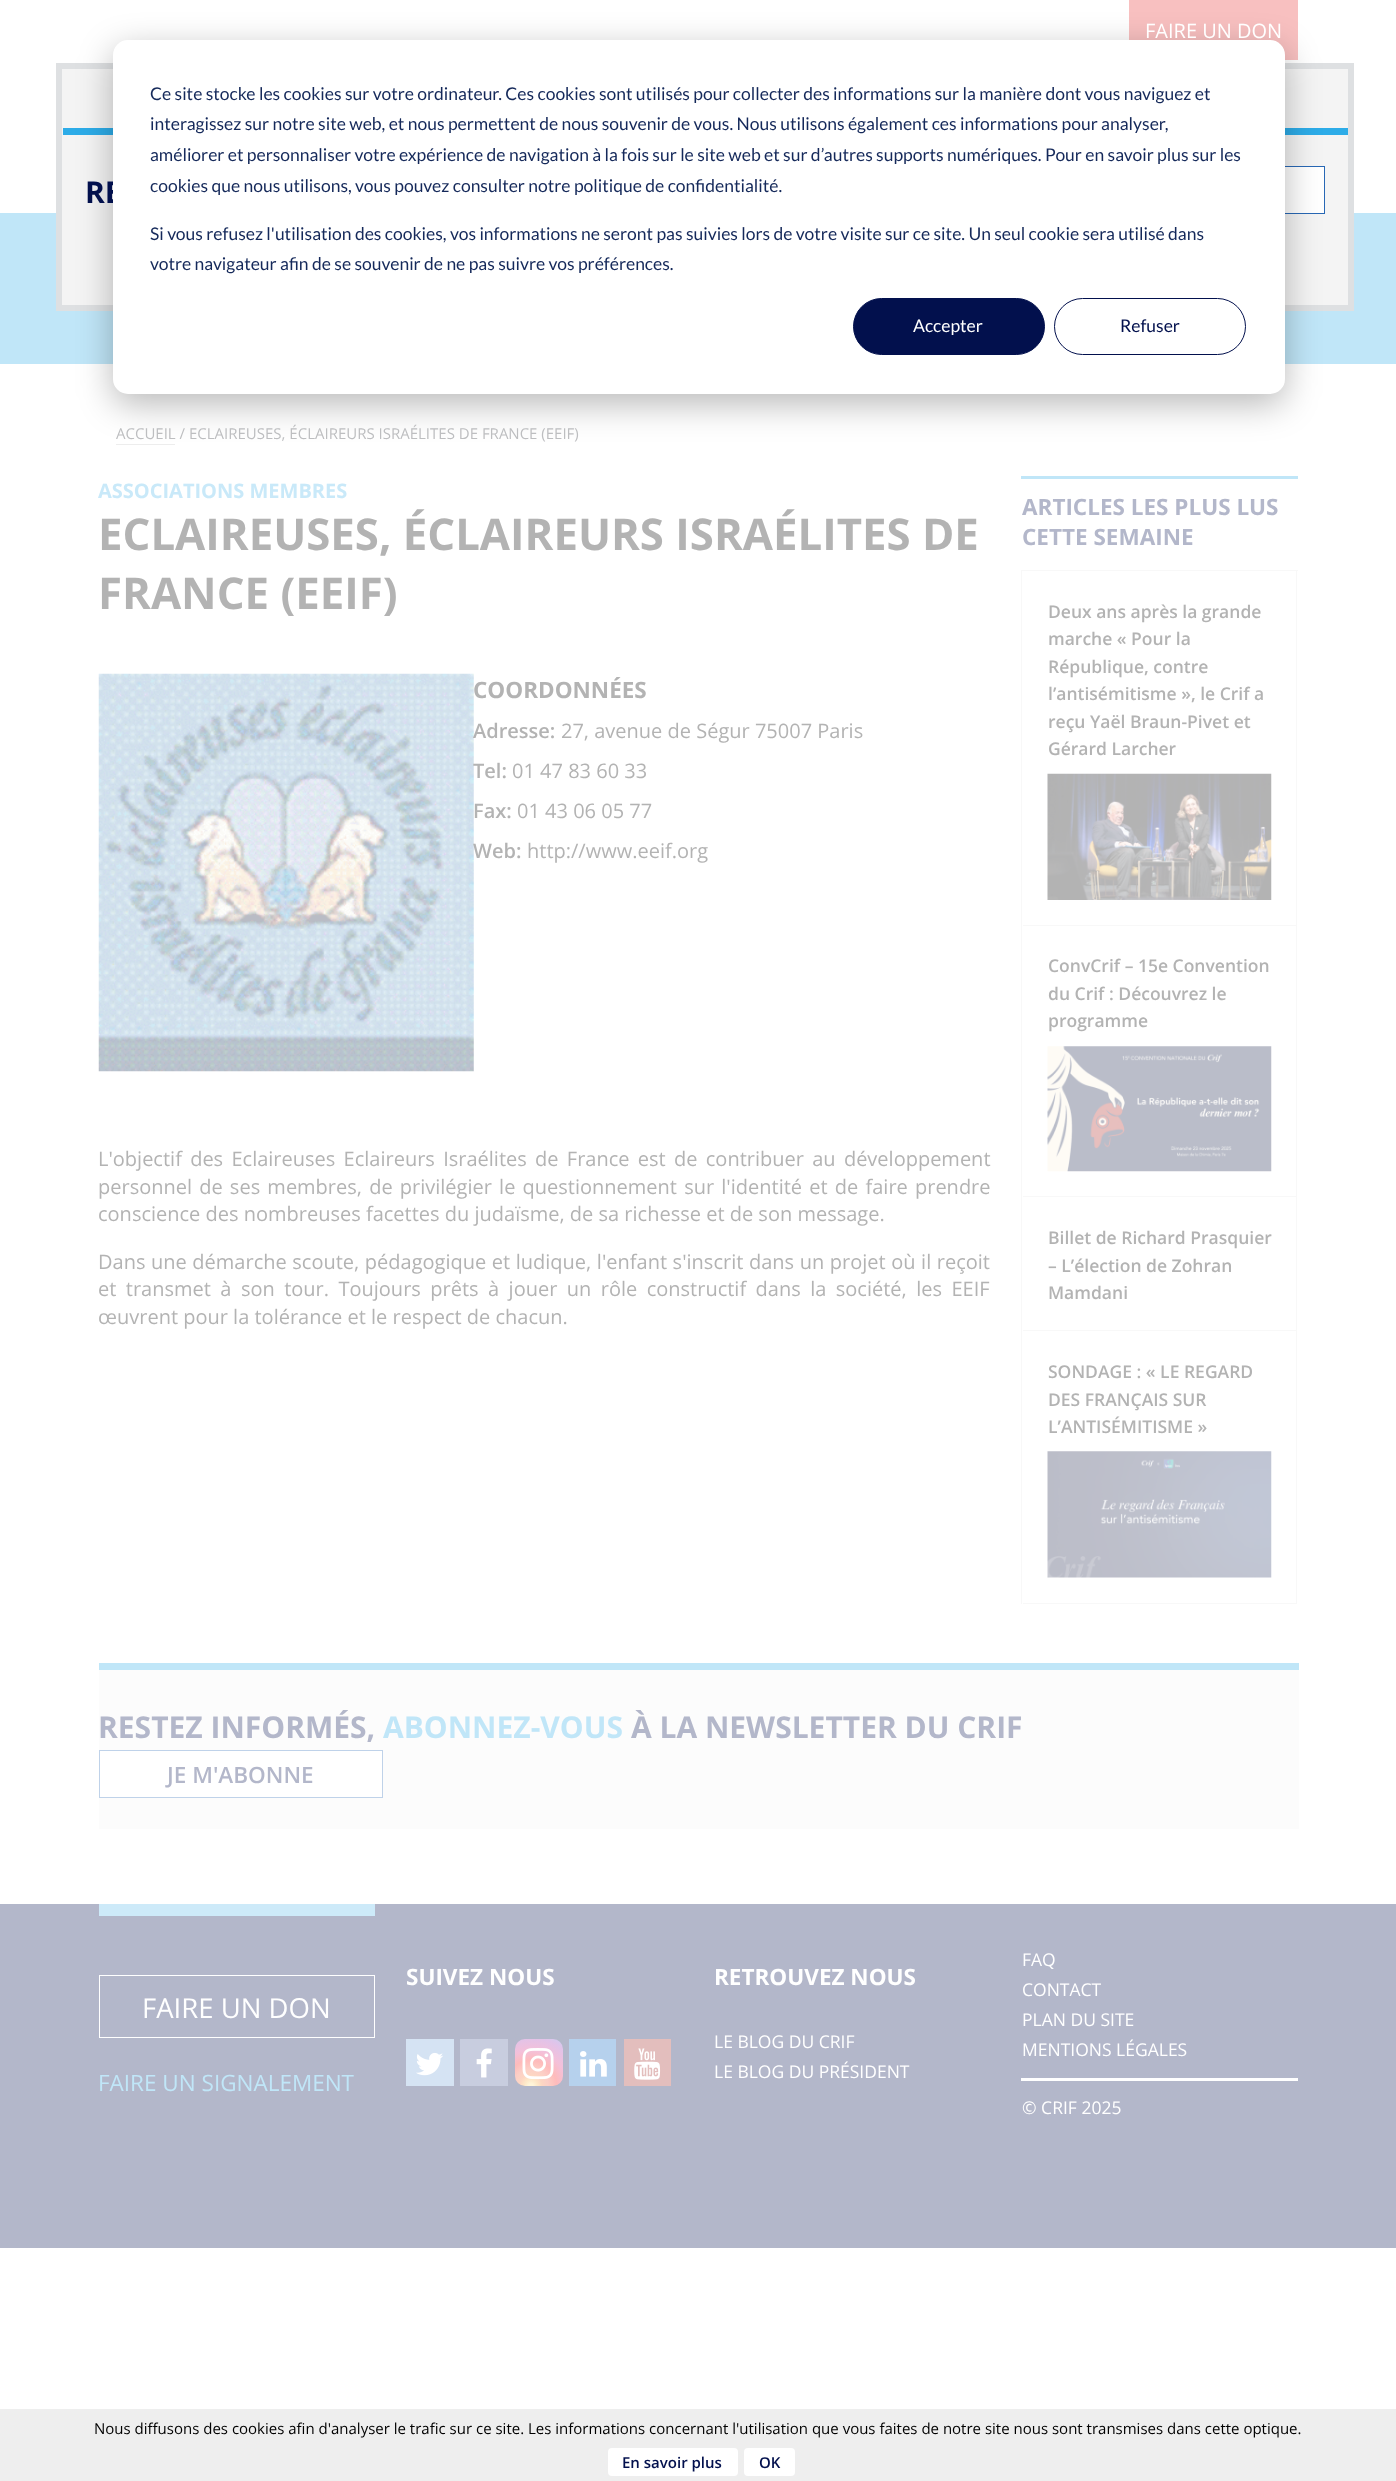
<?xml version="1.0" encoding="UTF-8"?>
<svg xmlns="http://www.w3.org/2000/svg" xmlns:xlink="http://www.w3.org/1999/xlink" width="1396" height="2481">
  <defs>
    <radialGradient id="g1" gradientUnits="userSpaceOnUse" cx="531" cy="2086" r="57"><stop offset="0.04" stop-color="#fff5d9" /><stop offset="0.12" stop-color="#fee7c7" /><stop offset="0.2" stop-color="#fdd6c3" /><stop offset="0.3" stop-color="#fccfc6" /><stop offset="0.45" stop-color="#febbbb" /><stop offset="0.62" stop-color="#f4c0d9" /><stop offset="0.85" stop-color="#e1c3e9" /><stop offset="1" stop-color="#cbcff1" /></radialGradient>
  </defs>
  <rect width="100%" height="100%" fill="#ffffff" />
  <rect x="1129" width="169" height="60" fill="#f8c0c0" />
  <rect y="213" width="1396" height="151" fill="#c0e6f8" />
  <rect x="59" y="66" width="1292" height="242" fill="#f4f4f4" stroke="#dee0e2" stroke-width="6" />
  <rect x="63" y="128" width="1285" height="7" fill="#2dace8" />
  <rect x="1285" y="167" width="39" height="46" fill="#ffffff" />
  <rect x="1041.5" y="166.5" width="283" height="47" fill="none" stroke="#2868b5" />
  <rect x="116" y="444" width="59" height="1" fill="#ededed" />
  <image x="98" y="673" width="376" height="399" xlink:href="image1.png" />
  <rect x="1021" y="476" width="277" height="3" fill="#c0e6f8" />
  <rect x="1021" y="570" width="277" height="1" fill="#f8f8f8" />
  <rect x="1296" y="570" width="1" height="1034" fill="#f8f8f8" />
  <rect x="1021" y="570" width="1" height="1034" fill="#f8f8f8" />
  <rect x="1023" y="925" width="273" height="1" fill="#f8f8f8" />
  <image x="1047" y="773" width="225" height="127" xlink:href="image2.png" />
  <rect x="1023" y="1196" width="273" height="1" fill="#f8f8f8" />
  <image x="1047" y="1046" width="225" height="126" xlink:href="image3.png" />
  <rect x="1023" y="1330" width="273" height="1" fill="#f8f8f8" />
  <rect x="1023" y="1603" width="273" height="1" fill="#f8f8f8" />
  <image x="1047" y="1451" width="225" height="127" xlink:href="image4.png" />
  <rect x="99" y="1670" width="1200" height="159" fill="#fcfcfc" />
  <rect x="99" y="1663" width="1200" height="7" fill="#c0e6f8" />
  <rect x="99.5" y="1750.5" width="283" height="47" fill="#ffffff" stroke="#bfd2e9" />
  <rect y="1904" width="1396" height="344" fill="#b3b7ca" />
  <rect x="99" y="1904" width="276" height="12" fill="#cdeaf9" />
  <rect x="99.5" y="1975.5" width="275" height="62" fill="none" stroke="#ffffff" />
  <rect x="406" y="2039" width="48" height="47" fill="#d5e3f3" />
  <image x="416" y="2052" width="27" height="24" xlink:href="image5.png" />
  <rect x="460" y="2039" width="48" height="47" fill="#c8cddf" />
  <image x="476" y="2048" width="16" height="30" xlink:href="image6.png" />
  <rect x="515" y="2039" width="48" height="47" rx="10" fill="url(#g1)" />
  <image x="522" y="2048" width="32" height="32" xlink:href="image7.png" />
  <rect x="569" y="2039" width="47" height="47" fill="#b6d1ed" />
  <image x="580" y="2051" width="27" height="26" xlink:href="image8.png" />
  <rect x="624" y="2039" width="47" height="47" fill="#e3bebd" />
  <image x="634" y="2048" width="27" height="32" xlink:href="image9.png" />
  <rect x="1021" y="2078" width="277" height="3" fill="#ffffff" />
  <rect x="113" y="50" width="1172" height="354" rx="15" fill="#000000" fill-opacity="0.28" filter="blur(17.5px)" />
  <rect y="2409" width="1396" height="72" fill="#eeeeee" />
  <rect x="608" y="2448" width="130" height="28" rx="4" fill="#ffffff" />
  <rect x="744" y="2448" width="51" height="28" rx="4" fill="#ffffff" />
  <text x="1145" y="38" style="font-family: Open Sans; font-size: 20px; fill: #ffffff">FAIRE UN DON</text>
  <text x="85" y="203" style="font-family: Open Sans; font-size: 30px; font-weight: bold; fill: #02104d">RE</text>
  <text x="116" y="439" style="font-family: Open Sans; font-size: 15px; fill: #bdbec0">ACCUEIL / ECLAIREUSES, ÉCLAIREURS ISRAÉLITES DE FRANCE (EEIF)</text>
  <text x="98" y="498" style="font-family: Open Sans; font-size: 20px; font-weight: bold; fill: #c9e9f9">ASSOCIATIONS MEMBRES</text>
  <text x="98" y="550" style="font-family: Open Sans; font-size: 43.75px; font-weight: bold; fill: #b3b3b3">ECLAIREUSES, ÉCLAIREURS ISRAÉLITES DE</text>
  <text x="98" y="609" style="font-family: Open Sans; font-size: 43.75px; font-weight: bold; fill: #b3b3b3">FRANCE (EEIF)</text>
  <text x="473" y="698" style="font-family: Open Sans; font-size: 22.5px; font-weight: bold; fill: #b3b3b3">COORDONNÉES</text>
  <text x="473" y="738" style="font-family: Open Sans; font-size: 20px; font-weight: 600; fill: #b3b3b3">Adresse:</text>
  <text x="561" y="738" style="font-family: Open Sans; font-size: 20px; fill: #b3b3b3">27, avenue de Ségur 75007 Paris</text>
  <text x="473" y="778" style="font-family: Open Sans; font-size: 20px; font-weight: 600; fill: #b3b3b3">Tel:</text>
  <text x="512" y="778" style="font-family: Open Sans; font-size: 20px; fill: #b3b3b3">01 47 83 60 33</text>
  <text x="473" y="818" style="font-family: Open Sans; font-size: 20px; font-weight: 600; fill: #b3b3b3">Fax:</text>
  <text x="517" y="818" style="font-family: Open Sans; font-size: 20px; fill: #b3b3b3">01 43 06 05 77</text>
  <text x="473" y="858" style="font-family: Open Sans; font-size: 20px; font-weight: 600; fill: #b3b3b3">Web:</text>
  <text x="527" y="858" style="font-family: Open Sans; font-size: 20px; fill: #b3b3b3">http://www.eeif.org</text>
  <text x="98" y="1166" word-spacing="3.1" style="font-family: Open Sans; font-size: 20px; fill: #b3b3b3">L'objectif des Eclaireuses Eclaireurs Israélites de France est de contribuer au développement</text>
  <text x="98" y="1194" word-spacing="2" style="font-family: Open Sans; font-size: 20px; fill: #b3b3b3">personnel de ses membres, de privilégier le questionnement sur l'identité et de faire prendre</text>
  <text x="98" y="1221" style="font-family: Open Sans; font-size: 20px; fill: #b3b3b3">conscience des nombreuses facettes du judaïsme, de sa richesse et de son message.</text>
  <text x="98" y="1269" word-spacing="0.4" style="font-family: Open Sans; font-size: 20px; fill: #b3b3b3">Dans une démarche scoute, pédagogique et ludique, l'enfant s'inscrit dans un projet où il reçoit</text>
  <text x="98" y="1296" word-spacing="4.25" style="font-family: Open Sans; font-size: 20px; fill: #b3b3b3">et transmet à son tour. Toujours prêts à jouer un rôle constructif dans la société, les EEIF</text>
  <text x="98" y="1324" style="font-family: Open Sans; font-size: 20px; fill: #b3b3b3">œuvrent pour la tolérance et le respect de chacun.</text>
  <text x="1022" y="515" style="font-family: Open Sans; font-size: 22.5px; font-weight: bold; fill: #b3b7ca">ARTICLES LES PLUS LUS</text>
  <text x="1022" y="545" style="font-family: Open Sans; font-size: 22.5px; font-weight: bold; fill: #b3b7ca">CETTE SEMAINE</text>
  <text x="1048" y="618" style="font-family: Open Sans; font-size: 17.5px; font-weight: 600; fill: #b3b3b3">Deux ans après la grande</text>
  <text x="1048" y="645" style="font-family: Open Sans; font-size: 17.5px; font-weight: 600; fill: #b3b3b3">marche « Pour la</text>
  <text x="1048" y="673" style="font-family: Open Sans; font-size: 17.5px; font-weight: 600; fill: #b3b3b3">République, contre</text>
  <text x="1048" y="700" style="font-family: Open Sans; font-size: 17.5px; font-weight: 600; fill: #b3b3b3">l’antisémitisme », le Crif a</text>
  <text x="1048" y="728" style="font-family: Open Sans; font-size: 17.5px; font-weight: 600; fill: #b3b3b3">reçu Yaël Braun-Pivet et</text>
  <text x="1048" y="755" style="font-family: Open Sans; font-size: 17.5px; font-weight: 600; fill: #b3b3b3">Gérard Larcher</text>
  <text x="1048" y="972" style="font-family: Open Sans; font-size: 17.5px; font-weight: 600; fill: #b3b3b3">ConvCrif – 15e Convention</text>
  <text x="1048" y="1000" style="font-family: Open Sans; font-size: 17.5px; font-weight: 600; fill: #b3b3b3">du Crif : Découvrez le</text>
  <text x="1048" y="1027" style="font-family: Open Sans; font-size: 17.5px; font-weight: 600; fill: #b3b3b3">programme</text>
  <text x="1048" y="1244" style="font-family: Open Sans; font-size: 17.5px; font-weight: 600; fill: #b3b3b3">Billet de Richard Prasquier</text>
  <text x="1048" y="1272" style="font-family: Open Sans; font-size: 17.5px; font-weight: 600; fill: #b3b3b3">– L’élection de Zohran</text>
  <text x="1048" y="1299" style="font-family: Open Sans; font-size: 17.5px; font-weight: 600; fill: #b3b3b3">Mamdani</text>
  <text x="1048" y="1378" style="font-family: Open Sans; font-size: 17.5px; font-weight: 600; fill: #b3b3b3">SONDAGE : « LE REGARD</text>
  <text x="1048" y="1406" style="font-family: Open Sans; font-size: 17.5px; font-weight: 600; fill: #b3b3b3">DES FRANÇAIS SUR</text>
  <text x="1048" y="1433" style="font-family: Open Sans; font-size: 17.5px; font-weight: 600; fill: #b3b3b3">L’ANTISÉMITISME »</text>
  <text x="98" y="1738" style="font-family: Open Sans; font-size: 30px; font-weight: bold; fill: #b3b7ca">RESTEZ INFORMÉS,</text>
  <text x="383" y="1738" style="font-family: Open Sans; font-size: 30px; font-weight: bold; fill: #c0e6f8">ABONNEZ-VOUS</text>
  <text x="631" y="1738" style="font-family: Open Sans; font-size: 30px; font-weight: bold; fill: #b3b7ca">À LA NEWSLETTER DU CRIF</text>
  <text x="167" y="1783" style="font-family: Open Sans; font-size: 22.5px; font-weight: 600; fill: #b3b7ca">JE M'ABONNE</text>
  <text x="142" y="2018" style="font-family: Open Sans; font-size: 27.5px; fill: #ffffff">FAIRE UN DON</text>
  <text x="98" y="2091" style="font-family: Open Sans; font-size: 22.5px; fill: #c0e6f8">FAIRE UN SIGNALEMENT</text>
  <text x="406" y="1985" style="font-family: Open Sans; font-size: 22.5px; font-weight: bold; fill: #ffffff">SUIVEZ NOUS</text>
  <text x="714" y="1985" style="font-family: Open Sans; font-size: 22.5px; font-weight: bold; fill: #ffffff">RETROUVEZ NOUS</text>
  <text x="714" y="2048" style="font-family: Open Sans; font-size: 17.5px; fill: #ffffff">LE BLOG DU CRIF</text>
  <text x="714" y="2078" style="font-family: Open Sans; font-size: 17.5px; fill: #ffffff">LE BLOG DU PRÉSIDENT</text>
  <text x="1022" y="1966" style="font-family: Open Sans; font-size: 17.5px; fill: #ffffff">FAQ</text>
  <text x="1022" y="1996" style="font-family: Open Sans; font-size: 17.5px; fill: #ffffff">CONTACT</text>
  <text x="1022" y="2026" style="font-family: Open Sans; font-size: 17.5px; fill: #ffffff">PLAN DU SITE</text>
  <text x="1022" y="2056" style="font-family: Open Sans; font-size: 17.5px; fill: #ffffff">MENTIONS LÉGALES</text>
  <text x="1022" y="2114" style="font-family: Open Sans; font-size: 17.5px; fill: #ffffff">© CRIF 2025</text>
  <rect x="113" y="40" width="1172" height="354" rx="15" fill="#ffffff" />
  <text x="150" y="100" style="font-family: Lato; font-size: 17.5px; fill: #15295a">Ce site stocke les cookies sur votre ordinateur. Ces cookies sont utilisés pour collecter des informations sur la manière dont vous naviguez et</text>
  <text x="150" y="130" style="font-family: Lato; font-size: 17.5px; fill: #15295a">interagissez sur notre site web, et nous permettent de nous souvenir de vous. Nous utilisons également ces informations pour analyser,</text>
  <text x="150" y="161" style="font-family: Lato; font-size: 17.5px; fill: #15295a">améliorer et personnaliser votre expérience de navigation à la fois sur le site web et sur d’autres supports numériques. Pour en savoir plus sur les</text>
  <text x="150" y="192" style="font-family: Lato; font-size: 17.5px; fill: #15295a">cookies que nous utilisons, vous pouvez consulter notre politique de confidentialité.</text>
  <text x="150" y="240" style="font-family: Lato; font-size: 17.5px; fill: #15295a">Si vous refusez l'utilisation des cookies, vos informations ne seront pas suivies lors de votre visite sur ce site. Un seul cookie sera utilisé dans</text>
  <text x="150" y="270" style="font-family: Lato; font-size: 17.5px; fill: #15295a">votre navigateur afin de se souvenir de ne pas suivre vos préférences.</text>
  <rect x="853.5" y="298.5" width="191" height="56" rx="28" fill="#02104d" stroke="#02104d" />
  <text x="913" y="332" style="font-family: Lato; font-size: 17.5px; fill: #ffffff">Accepter</text>
  <rect x="1054.5" y="298.5" width="191" height="56" rx="28" fill="none" stroke="#02104d" />
  <text x="1120" y="332" style="font-family: Lato; font-size: 17.5px; fill: #02104d">Refuser</text>
  <text x="94" y="2434" style="font-family: Open Sans; font-size: 15px; fill: #000000">Nous diffusons des cookies afin d'analyser le trafic sur ce site. Les informations concernant l'utilisation que vous faites de notre site nous sont transmises dans cette optique.</text>
  <text x="622" y="2468" style="font-family: Open Sans; font-size: 15px; font-weight: 600; fill: #02104d">En savoir plus</text>
  <text x="759" y="2468" style="font-family: Open Sans; font-size: 15px; font-weight: 600; fill: #02104d">OK</text>
</svg>
